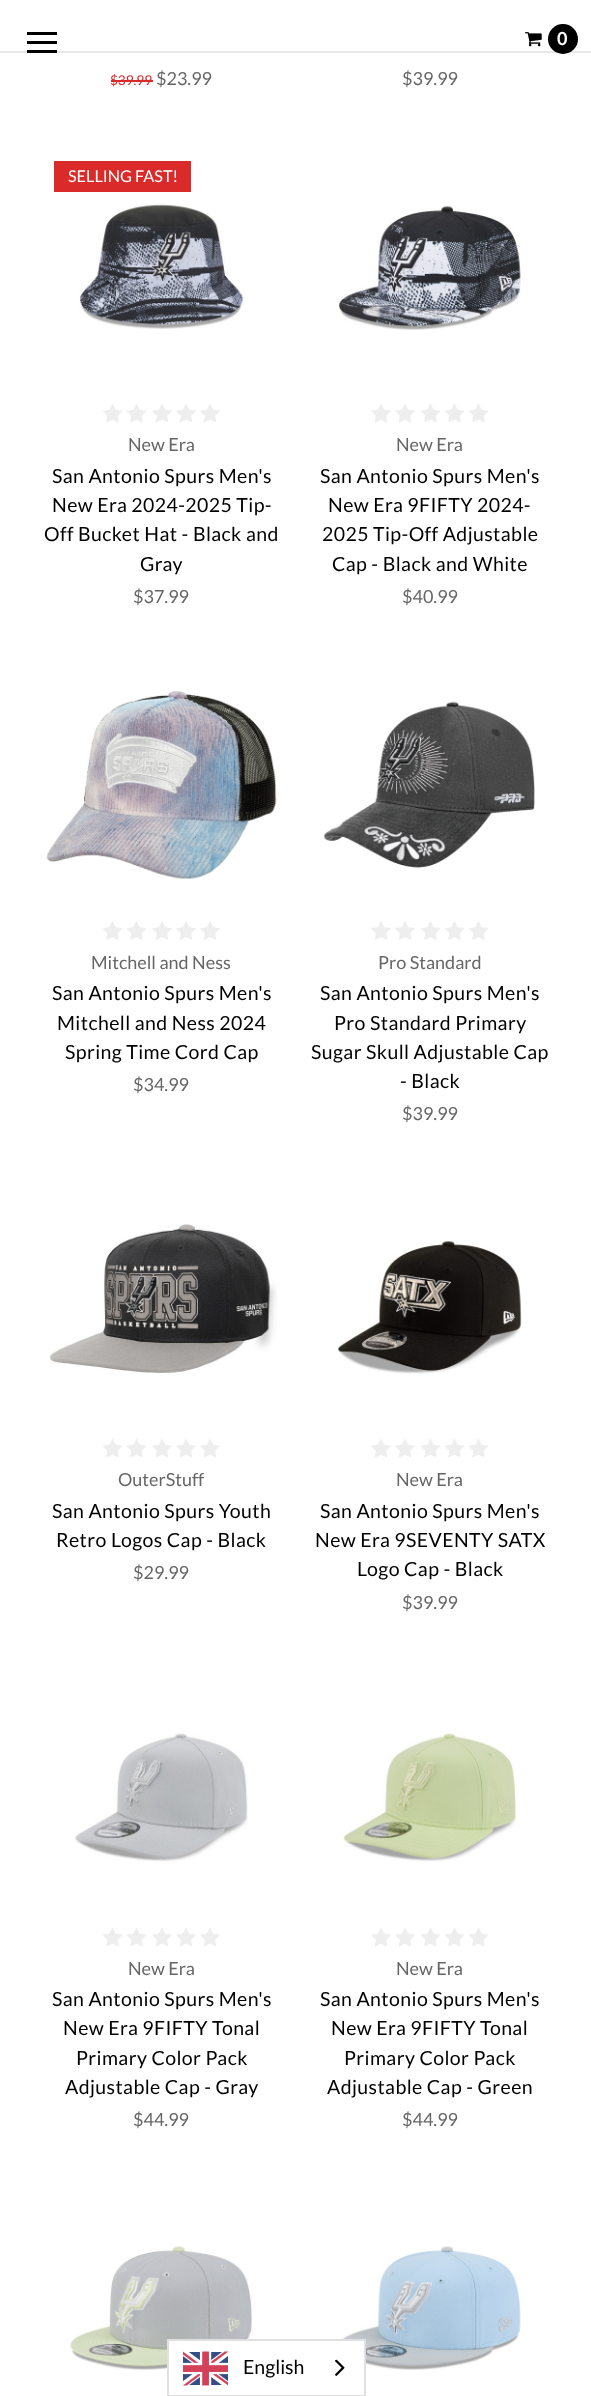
<?xml version="1.0" encoding="UTF-8"?>
<svg xmlns="http://www.w3.org/2000/svg" xmlns:xlink="http://www.w3.org/1999/xlink" width="591" height="2396">
  <rect width="100%" height="100%" fill="#ffffff" />
  <rect y="51" width="591" height="2" fill="#e8e8e8" />
  <rect x="27" y="41" width="30" height="3" fill="#000000" />
  <rect x="27" y="32" width="30" height="3" fill="#000000" />
  <rect x="27" y="50" width="30" height="3" fill="#000000" />
  <image x="525" y="32" width="17" height="15" xlink:href="image1.png" />
  <circle cx="563" cy="39" r="15" fill="#000000" />
  <rect x="111" y="80" width="42" height="2" fill="#da2a2a" />
  <rect x="54" y="161" width="137" height="31" fill="#da2a2a" />
  <image x="79" y="204" width="165" height="125" xlink:href="image2.png" />
  <image x="103" y="404" width="19" height="19" xlink:href="image3.png" />
  <image x="127" y="404" width="19" height="19" xlink:href="image3.png" />
  <image x="152" y="404" width="20" height="19" xlink:href="image4.png" />
  <image x="176" y="404" width="20" height="19" xlink:href="image4.png" />
  <image x="200" y="404" width="20" height="19" xlink:href="image4.png" />
  <image x="339" y="206" width="182" height="124" xlink:href="image5.png" />
  <image x="371" y="404" width="20" height="19" xlink:href="image4.png" />
  <image x="395" y="404" width="20" height="19" xlink:href="image4.png" />
  <image x="421" y="404" width="19" height="19" xlink:href="image3.png" />
  <image x="445" y="404" width="19" height="19" xlink:href="image3.png" />
  <image x="469" y="404" width="19" height="19" xlink:href="image3.png" />
  <image x="46" y="691" width="231" height="188" xlink:href="image6.png" />
  <image x="103" y="921" width="19" height="19" xlink:href="image7.png" />
  <image x="127" y="921" width="19" height="19" xlink:href="image7.png" />
  <image x="152" y="921" width="20" height="19" xlink:href="image8.png" />
  <image x="176" y="921" width="20" height="19" xlink:href="image8.png" />
  <image x="200" y="921" width="20" height="19" xlink:href="image8.png" />
  <image x="323" y="701" width="212" height="167" xlink:href="image9.png" />
  <image x="371" y="921" width="20" height="19" xlink:href="image8.png" />
  <image x="395" y="921" width="20" height="19" xlink:href="image8.png" />
  <image x="421" y="921" width="19" height="19" xlink:href="image7.png" />
  <image x="445" y="921" width="19" height="19" xlink:href="image7.png" />
  <image x="469" y="921" width="19" height="19" xlink:href="image7.png" />
  <image x="50" y="1224" width="227" height="149" xlink:href="image10.png" />
  <image x="103" y="1439" width="19" height="19" xlink:href="image3.png" />
  <image x="127" y="1439" width="19" height="19" xlink:href="image3.png" />
  <image x="152" y="1439" width="20" height="19" xlink:href="image4.png" />
  <image x="176" y="1439" width="20" height="19" xlink:href="image4.png" />
  <image x="200" y="1439" width="20" height="19" xlink:href="image4.png" />
  <image x="337" y="1241" width="185" height="133" xlink:href="image11.png" />
  <image x="371" y="1439" width="20" height="19" xlink:href="image4.png" />
  <image x="395" y="1439" width="20" height="19" xlink:href="image4.png" />
  <image x="421" y="1439" width="19" height="19" xlink:href="image3.png" />
  <image x="445" y="1439" width="19" height="19" xlink:href="image3.png" />
  <image x="469" y="1439" width="19" height="19" xlink:href="image3.png" />
  <image x="75" y="1733" width="173" height="129" xlink:href="image12.png" />
  <image x="103" y="1928" width="19" height="19" xlink:href="image3.png" />
  <image x="127" y="1928" width="19" height="19" xlink:href="image3.png" />
  <image x="152" y="1928" width="20" height="19" xlink:href="image4.png" />
  <image x="176" y="1928" width="20" height="19" xlink:href="image4.png" />
  <image x="200" y="1928" width="20" height="19" xlink:href="image4.png" />
  <image x="343" y="1733" width="174" height="129" xlink:href="image13.png" />
  <image x="371" y="1928" width="20" height="19" xlink:href="image4.png" />
  <image x="395" y="1928" width="20" height="19" xlink:href="image4.png" />
  <image x="421" y="1928" width="19" height="19" xlink:href="image3.png" />
  <image x="445" y="1928" width="19" height="19" xlink:href="image3.png" />
  <image x="469" y="1928" width="19" height="19" xlink:href="image3.png" />
  <image x="70" y="2246" width="183" height="124" xlink:href="image14.png" />
  <image x="339" y="2246" width="182" height="124" xlink:href="image15.png" />
  <rect x="169" y="2341" width="195" height="28" fill="#ffffff" />
  <rect x="168" y="2340" width="197" height="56" fill="none" stroke="#e0e0e0" stroke-width="2" />
  <image x="183" y="2351" width="45" height="35" xlink:href="image16.png" />
  <image x="335" y="2359" width="10" height="17" xlink:href="image17.png" />
  <text x="557" y="45" style="font-family: Lato; font-size: 18px; font-weight: bold; fill: #ffffff">0</text>
  <text x="110" y="85" style="font-family: Lato; font-size: 13.5px; fill: #da2a2a">$39.99</text>
  <text x="156" y="85" style="font-family: Lato; font-size: 18px; fill: #666666">$23.99</text>
  <text x="402" y="85" style="font-family: Lato; font-size: 18px; fill: #666666">$39.99</text>
  <text x="68" y="182" style="font-family: Lato; font-size: 16.25px; fill: #ffffff">SELLING FAST!</text>
  <text x="128" y="451" style="font-family: Lato; font-size: 18px; fill: #666666">New Era</text>
  <text x="52" y="483" style="font-family: Lato; font-size: 19.5px; letter-spacing: 0.4px; fill: #000000">San Antonio Spurs Men's</text>
  <text x="52" y="512" style="font-family: Lato; font-size: 19.5px; letter-spacing: 0.4px; fill: #000000">New Era 2024-2025 Tip-</text>
  <text x="44" y="541" style="font-family: Lato; font-size: 19.5px; letter-spacing: 0.4px; fill: #000000">Off Bucket Hat - Black and</text>
  <text x="140" y="571" style="font-family: Lato; font-size: 19.5px; letter-spacing: 0.4px; fill: #000000">Gray</text>
  <text x="133" y="603" style="font-family: Lato; font-size: 18px; fill: #666666">$37.99</text>
  <text x="396" y="451" style="font-family: Lato; font-size: 18px; fill: #666666">New Era</text>
  <text x="320" y="483" style="font-family: Lato; font-size: 19.5px; letter-spacing: 0.4px; fill: #000000">San Antonio Spurs Men's</text>
  <text x="328" y="512" style="font-family: Lato; font-size: 19.5px; letter-spacing: 0.4px; fill: #000000">New Era 9FIFTY 2024-</text>
  <text x="322" y="541" style="font-family: Lato; font-size: 19.5px; letter-spacing: 0.4px; fill: #000000">2025 Tip-Off Adjustable</text>
  <text x="332" y="571" style="font-family: Lato; font-size: 19.5px; letter-spacing: 0.4px; fill: #000000">Cap - Black and White</text>
  <text x="402" y="603" style="font-family: Lato; font-size: 18px; fill: #666666">$40.99</text>
  <text x="91" y="969" style="font-family: Lato; font-size: 18px; fill: #666666">Mitchell and Ness</text>
  <text x="52" y="1000" style="font-family: Lato; font-size: 19.5px; letter-spacing: 0.4px; fill: #000000">San Antonio Spurs Men's</text>
  <text x="57" y="1030" style="font-family: Lato; font-size: 19.5px; letter-spacing: 0.4px; fill: #000000">Mitchell and Ness 2024</text>
  <text x="65" y="1059" style="font-family: Lato; font-size: 19.5px; letter-spacing: 0.4px; fill: #000000">Spring Time Cord Cap</text>
  <text x="133" y="1091" style="font-family: Lato; font-size: 18px; fill: #666666">$34.99</text>
  <text x="378" y="969" style="font-family: Lato; font-size: 18px; fill: #666666">Pro Standard</text>
  <text x="320" y="1000" style="font-family: Lato; font-size: 19.5px; letter-spacing: 0.4px; fill: #000000">San Antonio Spurs Men's</text>
  <text x="334" y="1030" style="font-family: Lato; font-size: 19.5px; letter-spacing: 0.4px; fill: #000000">Pro Standard Primary</text>
  <text x="311" y="1059" style="font-family: Lato; font-size: 19.5px; letter-spacing: 0.4px; fill: #000000">Sugar Skull Adjustable Cap</text>
  <text x="400" y="1088" style="font-family: Lato; font-size: 19.5px; letter-spacing: 0.4px; fill: #000000">- Black</text>
  <text x="402" y="1120" style="font-family: Lato; font-size: 18px; fill: #666666">$39.99</text>
  <text x="118" y="1486" style="font-family: Lato; font-size: 18px; fill: #666666">OuterStuff</text>
  <text x="52" y="1518" style="font-family: Lato; font-size: 19.5px; letter-spacing: 0.4px; fill: #000000">San Antonio Spurs Youth</text>
  <text x="56" y="1547" style="font-family: Lato; font-size: 19.5px; letter-spacing: 0.4px; fill: #000000">Retro Logos Cap - Black</text>
  <text x="133" y="1579" style="font-family: Lato; font-size: 18px; fill: #666666">$29.99</text>
  <text x="396" y="1486" style="font-family: Lato; font-size: 18px; fill: #666666">New Era</text>
  <text x="320" y="1518" style="font-family: Lato; font-size: 19.5px; letter-spacing: 0.4px; fill: #000000">San Antonio Spurs Men's</text>
  <text x="315" y="1547" style="font-family: Lato; font-size: 19.5px; letter-spacing: 0.4px; fill: #000000">New Era 9SEVENTY SATX</text>
  <text x="357" y="1576" style="font-family: Lato; font-size: 19.5px; letter-spacing: 0.4px; fill: #000000">Logo Cap - Black</text>
  <text x="402" y="1609" style="font-family: Lato; font-size: 18px; fill: #666666">$39.99</text>
  <text x="128" y="1975" style="font-family: Lato; font-size: 18px; fill: #666666">New Era</text>
  <text x="52" y="2006" style="font-family: Lato; font-size: 19.5px; letter-spacing: 0.4px; fill: #000000">San Antonio Spurs Men's</text>
  <text x="63" y="2035" style="font-family: Lato; font-size: 19.5px; letter-spacing: 0.4px; fill: #000000">New Era 9FIFTY Tonal</text>
  <text x="76" y="2065" style="font-family: Lato; font-size: 19.5px; letter-spacing: 0.4px; fill: #000000">Primary Color Pack</text>
  <text x="65" y="2094" style="font-family: Lato; font-size: 19.5px; letter-spacing: 0.4px; fill: #000000">Adjustable Cap - Gray</text>
  <text x="133" y="2126" style="font-family: Lato; font-size: 18px; fill: #666666">$44.99</text>
  <text x="396" y="1975" style="font-family: Lato; font-size: 18px; fill: #666666">New Era</text>
  <text x="320" y="2006" style="font-family: Lato; font-size: 19.5px; letter-spacing: 0.4px; fill: #000000">San Antonio Spurs Men's</text>
  <text x="331" y="2035" style="font-family: Lato; font-size: 19.5px; letter-spacing: 0.4px; fill: #000000">New Era 9FIFTY Tonal</text>
  <text x="344" y="2065" style="font-family: Lato; font-size: 19.5px; letter-spacing: 0.4px; fill: #000000">Primary Color Pack</text>
  <text x="327" y="2094" style="font-family: Lato; font-size: 19.5px; letter-spacing: 0.4px; fill: #000000">Adjustable Cap - Green</text>
  <text x="402" y="2126" style="font-family: Lato; font-size: 18px; fill: #666666">$44.99</text>
  <text x="243" y="2374" style="font-family: Lato; font-size: 19.5px; fill: #000000">English</text>
</svg>
